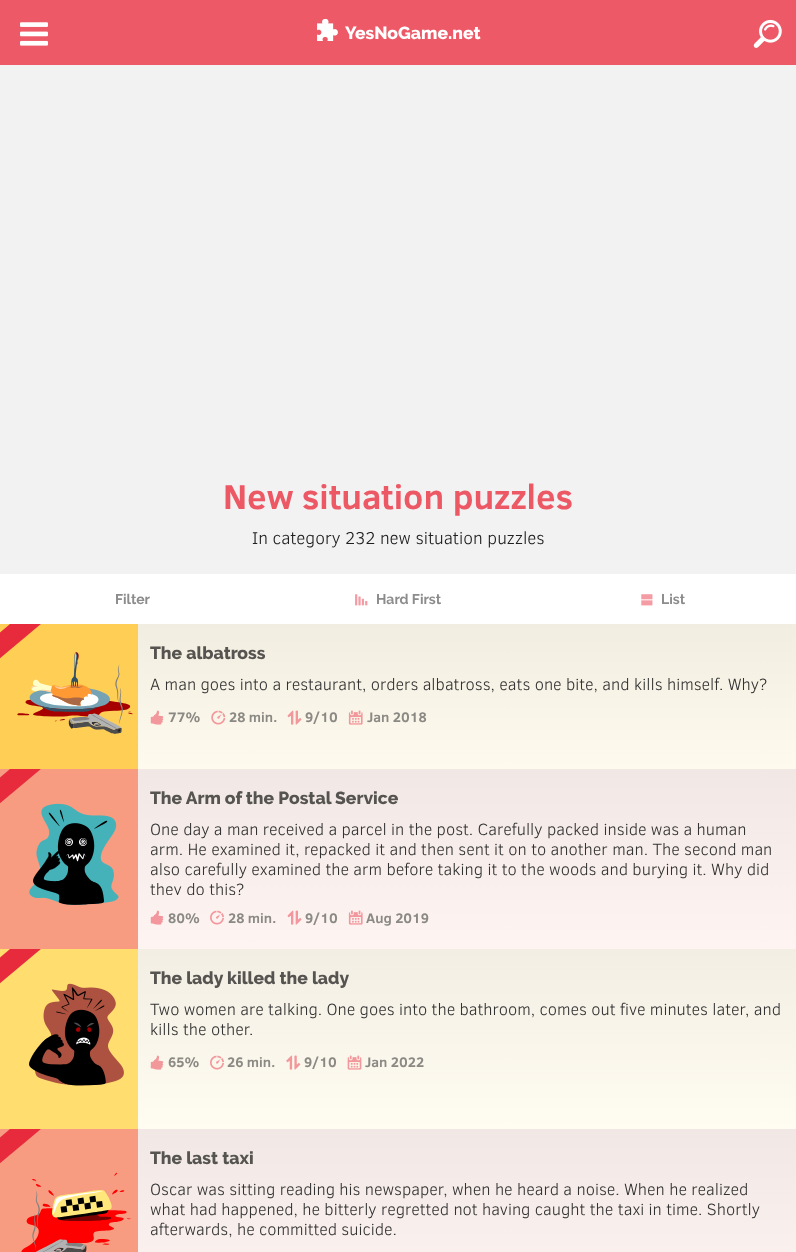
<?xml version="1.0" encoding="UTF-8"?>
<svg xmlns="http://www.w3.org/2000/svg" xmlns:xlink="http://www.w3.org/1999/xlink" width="796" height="1252">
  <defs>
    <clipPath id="clip1"><rect y="624" width="106" height="62" /></clipPath>
    <linearGradient id="g1" gradientUnits="userSpaceOnUse" x1="467" y1="624" x2="467" y2="769"><stop offset="0" stop-color="#f2ede1" /><stop offset="1" stop-color="#fffaee" /></linearGradient>
    <clipPath id="clip2"><rect y="769" width="106" height="62" /></clipPath>
    <linearGradient id="g2" gradientUnits="userSpaceOnUse" x1="467" y1="769" x2="467" y2="949"><stop offset="0" stop-color="#f1e8e5" /><stop offset="1" stop-color="#fef5f2" /></linearGradient>
    <clipPath id="clip3"><rect y="949" width="106" height="62" /></clipPath>
    <linearGradient id="g3" gradientUnits="userSpaceOnUse" x1="467" y1="949" x2="467" y2="1129"><stop offset="0" stop-color="#f2eee3" /><stop offset="1" stop-color="#fffcf1" /></linearGradient>
    <clipPath id="clip4"><rect y="1129" width="106" height="62" /></clipPath>
    <linearGradient id="g4" gradientUnits="userSpaceOnUse" x1="467" y1="1129" x2="467" y2="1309"><stop offset="0" stop-color="#f1e8e5" /><stop offset="1" stop-color="#fef5f2" /></linearGradient>
    <clipPath id="clip5"><rect x="150" y="820" width="634" height="75" /></clipPath>
  </defs>
  <rect width="100%" height="100%" fill="#f2f2f2" />
  <rect width="796" height="65" fill="#ed5966" />
  <image x="20" y="22" width="28" height="24" xlink:href="image1.png" />
  <image x="317" y="19" width="21" height="22" xlink:href="image2.png" />
  <image x="753" y="19" width="29" height="29" xlink:href="image3.png" />
  <rect y="574" width="796" height="50" fill="#ffffff" />
  <image x="355" y="594" width="13" height="12" xlink:href="image4.png" />
  <image x="641" y="594" width="12" height="12" xlink:href="image5.png" />
  <rect y="624" width="138" height="145" fill="#ffce55" />
  <image x="17" y="652" width="116" height="82" xlink:href="image6.png" />
  <g clip-path="url(#clip1)">
    <path d="M -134 745 l 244 -205 l 13 15 l -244 205 z" fill="#e82b3c" />
  </g>
  <rect x="138" y="624" width="658" height="145" fill="url(#g1)" />
  <image x="150" y="710" width="14" height="15" xlink:href="image7.png" />
  <image x="211" y="710" width="15" height="15" xlink:href="image8.png" />
  <image x="287" y="710" width="15" height="15" xlink:href="image9.png" />
  <image x="348" y="710" width="15" height="15" xlink:href="image10.png" />
  <rect y="769" width="138" height="180" fill="#f79c81" />
  <image x="29" y="803" width="90" height="102" xlink:href="image11.png" />
  <g clip-path="url(#clip2)">
    <path d="M -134 890 l 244 -205 l 13 15 l -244 205 z" fill="#e82b3c" />
  </g>
  <rect x="138" y="769" width="658" height="180" fill="url(#g2)" />
  <image x="150" y="910" width="14" height="15" xlink:href="image12.png" />
  <image x="210" y="910" width="14" height="15" xlink:href="image13.png" />
  <image x="287" y="910" width="15" height="15" xlink:href="image14.png" />
  <image x="348" y="910" width="15" height="15" xlink:href="image15.png" />
  <rect y="949" width="138" height="180" fill="#ffde6f" />
  <image x="29" y="983" width="95" height="103" xlink:href="image16.png" />
  <g clip-path="url(#clip3)">
    <path d="M -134 1070 l 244 -205 l 13 15 l -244 205 z" fill="#e82b3c" />
  </g>
  <rect x="138" y="949" width="658" height="180" fill="url(#g3)" />
  <image x="150" y="1055" width="14" height="15" xlink:href="image17.png" />
  <image x="210" y="1055" width="14" height="15" xlink:href="image18.png" />
  <image x="286" y="1055" width="15" height="15" xlink:href="image19.png" />
  <image x="347" y="1055" width="15" height="15" xlink:href="image20.png" />
  <rect y="1129" width="138" height="123" fill="#f79c81" />
  <g clip-path="url(#clip4)">
    <path d="M -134 1250 l 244 -205 l 13 15 l -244 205 z" fill="#e82b3c" />
  </g>
  <image x="21" y="1172" width="110" height="80" xlink:href="image21.png" />
  <rect x="138" y="1129" width="658" height="123" fill="url(#g4)" />
  <text x="345" y="39" style="font-family: Raleway; font-size: 17.5px; font-weight: 800; fill: #ffffff">YesNoGame.net</text>
  <text x="223" y="509" style="font-family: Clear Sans; font-size: 35px; font-weight: bold; fill: #ed5865">New situation puzzles</text>
  <text x="252" y="544" style="font-family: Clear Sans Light; font-size: 17.5px; font-weight: 300; fill: #202020">In category 232 new situation puzzles</text>
  <text x="115" y="604" style="font-family: Raleway; font-size: 14px; font-weight: bold; fill: #8c8c8c">Filter</text>
  <text x="376" y="604" style="font-family: Raleway; font-size: 14px; font-weight: bold; fill: #8c8c8c">Hard First</text>
  <text x="661" y="604" style="font-family: Raleway; font-size: 14px; font-weight: bold; fill: #8c8c8c">List</text>
  <text x="150" y="659" style="font-family: Raleway; font-size: 17.5px; font-weight: 800; fill: #565450">The albatross</text>
  <text x="150" y="690" style="font-family: Clear Sans Light; font-size: 16.6px; font-weight: 300; fill: #333333">A man goes into a restaurant, orders albatross, eats one bite, and kills himself. Why?</text>
  <text x="168" y="722" style="font-family: Clear Sans; font-size: 14px; font-weight: bold; fill: #8b8984">77%</text>
  <text x="229" y="722" style="font-family: Clear Sans; font-size: 14px; font-weight: bold; fill: #8b8984">28 min.</text>
  <text x="305" y="722" style="font-family: Clear Sans; font-size: 14px; font-weight: bold; fill: #8b8984">9/10</text>
  <text x="367" y="722" style="font-family: Clear Sans; font-size: 14px; font-weight: bold; fill: #8b8984">Jan 2018</text>
  <text x="150" y="804" style="font-family: Raleway; font-size: 17.5px; font-weight: 800; fill: #565450">The Arm of the Postal Service</text>
  <text x="150" y="835" style="font-family: Clear Sans Light; font-size: 16.6px; font-weight: 300; fill: #333333">One day a man received a parcel in the post. Carefully packed inside was a human</text>
  <text x="150" y="855" style="font-family: Clear Sans Light; font-size: 16.6px; font-weight: 300; fill: #333333">arm. He examined it, repacked it and then sent it on to another man. The second man</text>
  <text x="150" y="875" style="font-family: Clear Sans Light; font-size: 16.6px; font-weight: 300; fill: #333333">also carefully examined the arm before taking it to the woods and burying it. Why did</text>
  <g clip-path="url(#clip5)">
    <text x="150" y="895" style="font-family: Clear Sans Light; font-size: 16.6px; font-weight: 300; fill: #333333">they do this?</text>
  </g>
  <text x="168" y="923" style="font-family: Clear Sans; font-size: 14px; font-weight: bold; fill: #8b8984">80%</text>
  <text x="228" y="923" style="font-family: Clear Sans; font-size: 14px; font-weight: bold; fill: #8b8984">28 min.</text>
  <text x="305" y="923" style="font-family: Clear Sans; font-size: 14px; font-weight: bold; fill: #8b8984">9/10</text>
  <text x="366" y="923" style="font-family: Clear Sans; font-size: 14px; font-weight: bold; fill: #8b8984">Aug 2019</text>
  <text x="150" y="984" style="font-family: Raleway; font-size: 17.5px; font-weight: 800; fill: #565450">The lady killed the lady</text>
  <text x="150" y="1015" style="font-family: Clear Sans Light; font-size: 16.6px; font-weight: 300; fill: #333333">Two women are talking. One goes into the bathroom, comes out five minutes later, and</text>
  <text x="150" y="1035" style="font-family: Clear Sans Light; font-size: 16.6px; font-weight: 300; fill: #333333">kills the other.</text>
  <text x="168" y="1067" style="font-family: Clear Sans; font-size: 14px; font-weight: bold; fill: #8b8984">65%</text>
  <text x="227" y="1067" style="font-family: Clear Sans; font-size: 14px; font-weight: bold; fill: #8b8984">26 min.</text>
  <text x="304" y="1067" style="font-family: Clear Sans; font-size: 14px; font-weight: bold; fill: #8b8984">9/10</text>
  <text x="365" y="1067" style="font-family: Clear Sans; font-size: 14px; font-weight: bold; fill: #8b8984">Jan 2022</text>
  <text x="150" y="1164" style="font-family: Raleway; font-size: 17.5px; font-weight: 800; fill: #565450">The last taxi</text>
  <text x="150" y="1195" style="font-family: Clear Sans Light; font-size: 16.6px; font-weight: 300; fill: #333333">Oscar was sitting reading his newspaper, when he heard a noise. When he realized</text>
  <text x="150" y="1215" style="font-family: Clear Sans Light; font-size: 16.6px; font-weight: 300; fill: #333333">what had happened, he bitterly regretted not having caught the taxi in time. Shortly</text>
  <text x="150" y="1235" style="font-family: Clear Sans Light; font-size: 16.6px; font-weight: 300; fill: #333333">afterwards, he committed suicide.</text>
</svg>
